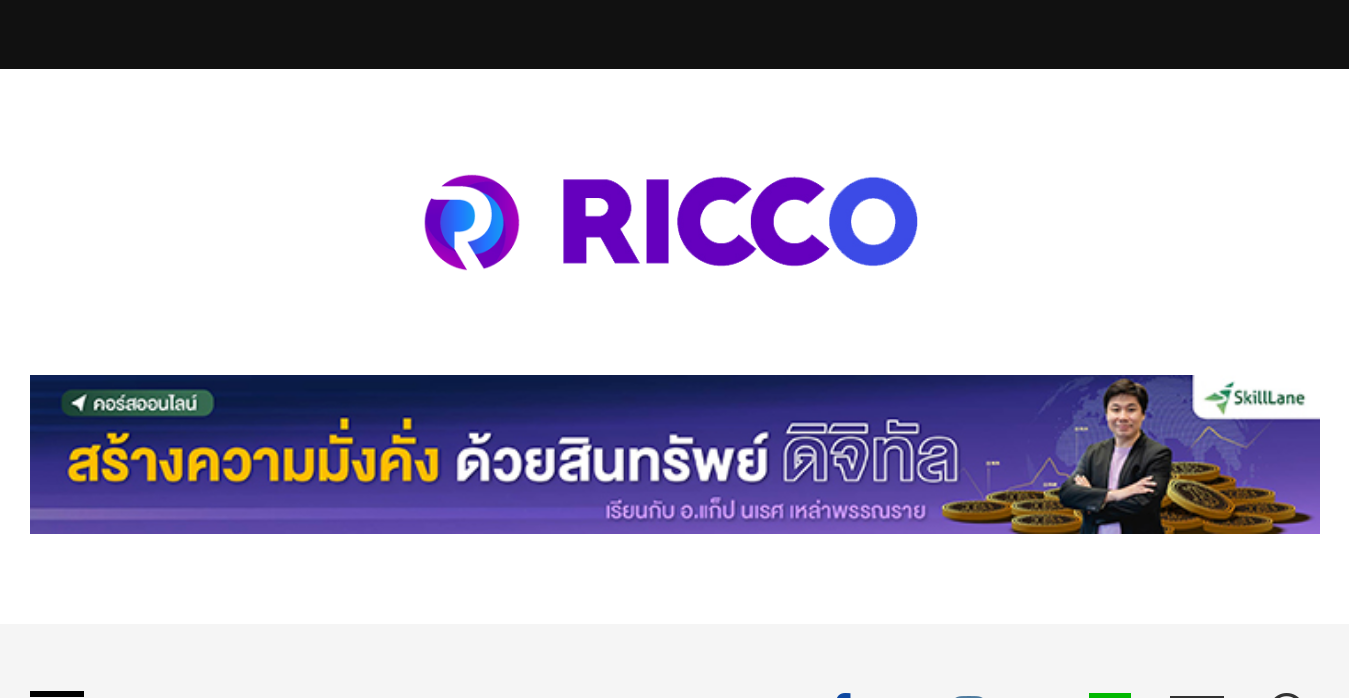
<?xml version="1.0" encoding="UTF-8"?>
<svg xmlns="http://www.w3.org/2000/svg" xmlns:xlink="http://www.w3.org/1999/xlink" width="1349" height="698">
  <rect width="100%" height="100%" fill="#ffffff" />
  <rect width="1349" height="69" fill="#111111" />
  <image x="424" y="174" width="494" height="97" xlink:href="image1.png" />
  <image x="30" y="375" width="1290" height="159" xlink:href="image2.png" />
  <rect y="624" width="1349" height="74" fill="#f5f5f5" />
  <rect x="30" y="691" width="54" height="6" fill="#000000" />
  <image x="837" y="693" width="14" height="5" xlink:href="image3.png" />
  <image x="955" y="696" width="28" height="2" xlink:href="image4.png" />
  <rect x="1089" y="693" width="42" height="5" fill="#01b901" />
  <rect x="1170" y="696" width="54" height="2" fill="#313131" />
  <image x="1274" y="693" width="25" height="5" xlink:href="image5.png" />
</svg>
